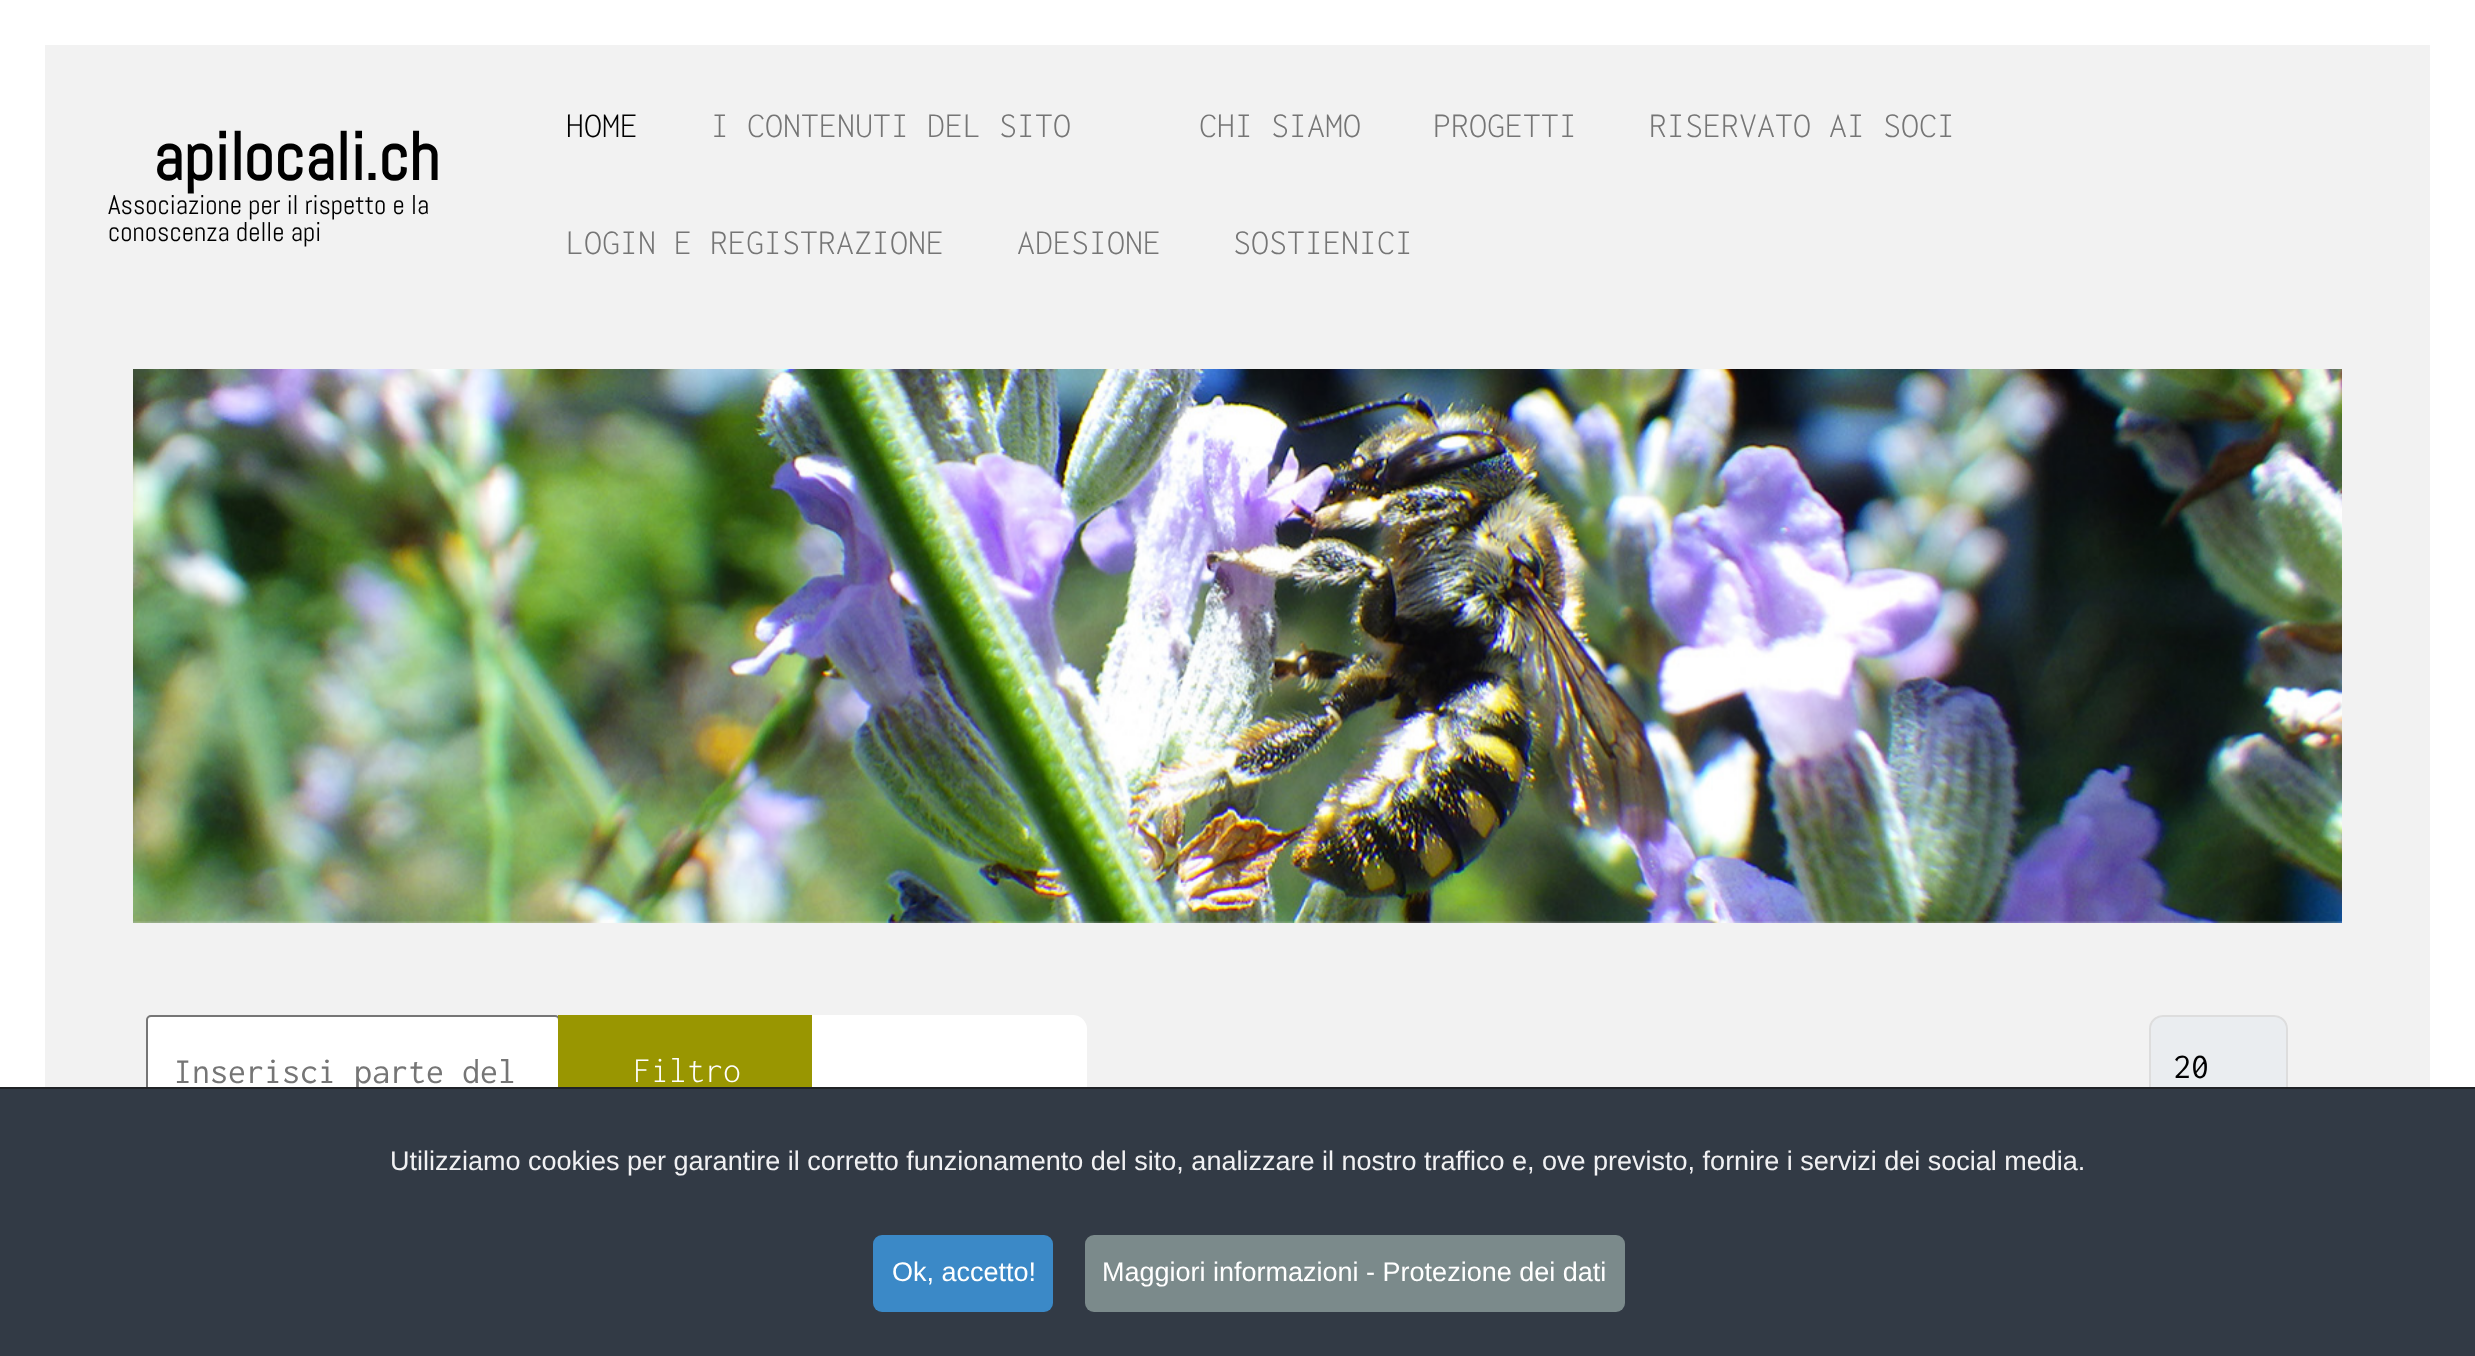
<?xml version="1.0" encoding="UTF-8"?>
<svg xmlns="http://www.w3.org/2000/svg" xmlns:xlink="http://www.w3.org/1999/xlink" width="2475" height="1356">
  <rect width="100%" height="100%" fill="#f2f2f2" />
  <rect x="22.5" y="22.5" width="2430" height="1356" fill="none" stroke="#ffffff" stroke-width="45" />
  <image x="133" y="369" width="2209" height="554" xlink:href="image1.png" />
  <rect x="147" y="1016" width="412" height="110" rx="4" fill="#ffffff" stroke="#767676" stroke-width="2" />
  <rect x="558" y="1015" width="254" height="72" fill="#999601" />
  <path d="M 812 1015 h 261 c 7.5 0 14 6.5 14 14 v 84 c 0 7.5 -6.5 14 -14 14 h -261 z" fill="#ffffff" />
  <rect x="2150" y="1016" width="137" height="101" rx="13" fill="#eaedf0" stroke="#dddddd" stroke-width="2" />
  <rect y="1089" width="2475" height="267" fill="#323a45" />
  <rect x="873" y="1235" width="180" height="77" rx="9" fill="#3b89c7" />
  <rect x="1085" y="1235" width="540" height="77" rx="9" fill="#7b8a8b" />
  <text x="153" y="180" style="font-family: Abel; font-size: 67.5px; font-weight: bold; fill: #000000">apilocali.ch</text>
  <text x="108" y="214" style="font-family: Abel; font-size: 27px; fill: #000000">Associazione per il rispetto e la</text>
  <text x="108" y="241" style="font-family: Abel; font-size: 27px; fill: #000000">conoscenza delle api</text>
  <text x="566" y="137" style="font-family: Inconsolata; font-size: 36px; font-weight: 300; fill: #000000">HOME</text>
  <text x="711" y="137" style="font-family: Inconsolata; font-size: 36px; font-weight: 300; fill: #757575">I CONTENUTI DEL SITO</text>
  <text x="1199" y="137" style="font-family: Inconsolata; font-size: 36px; font-weight: 300; fill: #757575">CHI SIAMO</text>
  <text x="1433" y="137" style="font-family: Inconsolata; font-size: 36px; font-weight: 300; fill: #757575">PROGETTI</text>
  <text x="1649" y="137" style="font-family: Inconsolata; font-size: 36px; font-weight: 300; fill: #757575">RISERVATO AI SOCI</text>
  <text x="566" y="254" style="font-family: Inconsolata; font-size: 36px; font-weight: 300; fill: #757575">LOGIN E REGISTRAZIONE</text>
  <text x="1017" y="254" style="font-family: Inconsolata; font-size: 36px; font-weight: 300; fill: #757575">ADESIONE</text>
  <text x="1233" y="254" style="font-family: Inconsolata; font-size: 36px; font-weight: 300; fill: #757575">SOSTIENICI</text>
  <text x="174" y="1083" style="font-family: Inconsolata; font-size: 36px; fill: #757575">Inserisci parte del</text>
  <text x="633" y="1082" style="font-family: Inconsolata; font-size: 36px; font-weight: 300; fill: #ffffff">Filtro</text>
  <text x="2173" y="1078" style="font-family: Inconsolata; font-size: 36px; fill: #000000">20</text>
  <rect y="1087" width="2475" height="2" fill="#202226" />
  <text x="390" y="1170" style="font-family: Liberation Sans; font-size: 27px; fill: #f1f1f3">Utilizziamo cookies per garantire il corretto funzionamento del sito, analizzare il nostro traffico e, ove previsto, fornire i servizi dei social media.</text>
  <text x="892" y="1281" style="font-family: Liberation Sans; font-size: 27px; fill: #ffffff">Ok, accetto!</text>
  <text x="1102" y="1281" style="font-family: Liberation Sans; font-size: 27px; fill: #ffffff">Maggiori informazioni - Protezione dei dati</text>
</svg>
